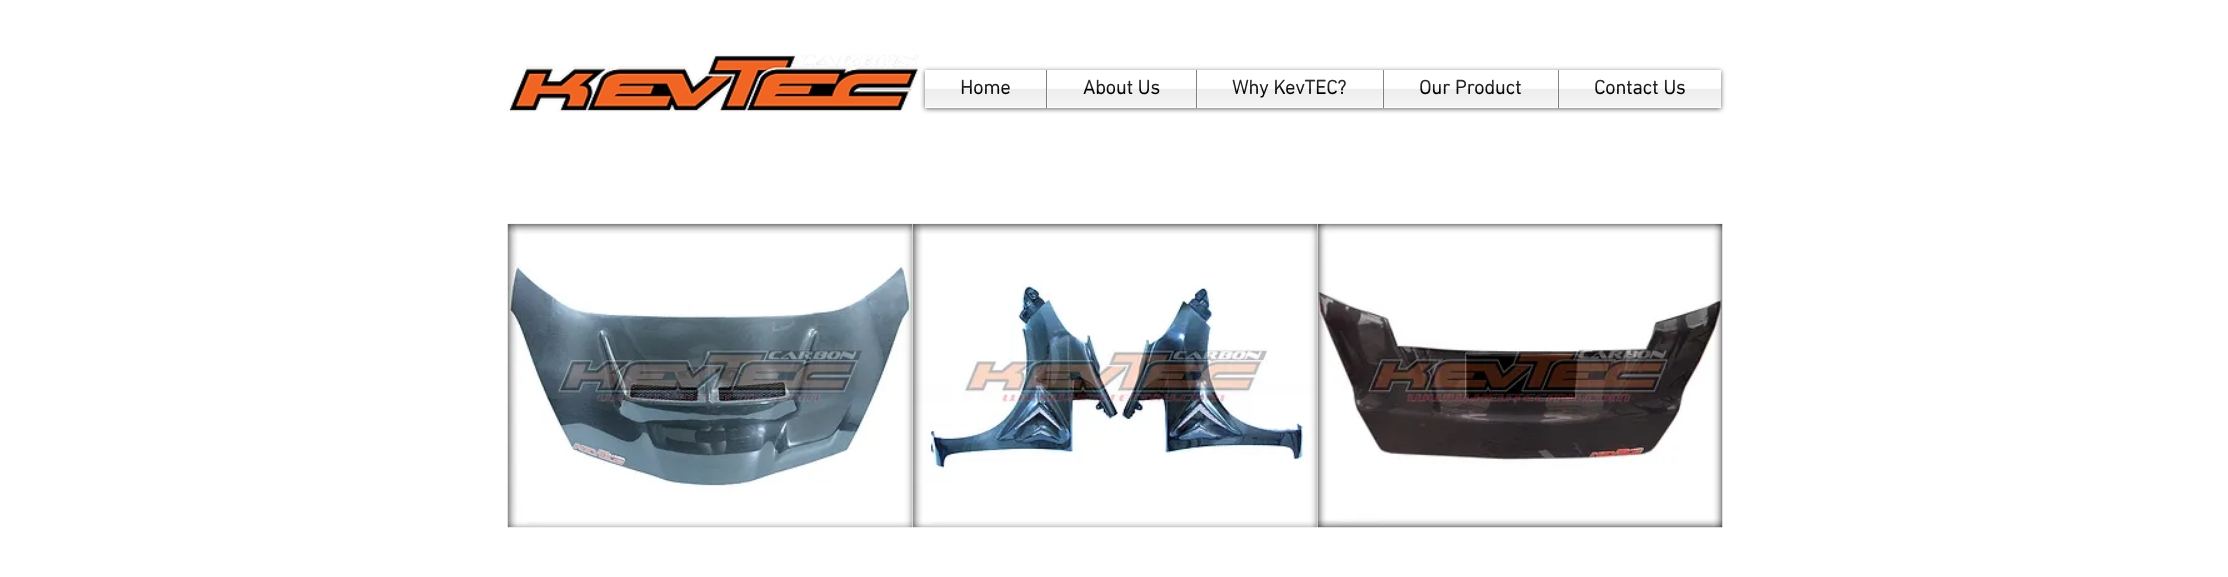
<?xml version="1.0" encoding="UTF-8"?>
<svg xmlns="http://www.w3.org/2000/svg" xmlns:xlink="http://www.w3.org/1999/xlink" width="2228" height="577">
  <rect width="100%" height="100%" fill="#ffffff" />
  <image x="506" y="54" width="415" height="59" xlink:href="image1.png" />
  <rect x="925" y="71" width="796" height="38" fill="#000000" fill-opacity="0.6" filter="blur(2.5px)" />
  <rect x="925" y="70" width="121" height="38" fill="#ffffff" />
  <rect x="1047" y="70" width="149" height="38" fill="#ffffff" />
  <rect x="1046" y="70" width="1" height="38" fill="#818181" />
  <rect x="1197" y="70" width="186" height="38" fill="#ffffff" />
  <rect x="1196" y="70" width="1" height="38" fill="#818181" />
  <rect x="1384" y="70" width="174" height="38" fill="#ffffff" />
  <rect x="1383" y="70" width="1" height="38" fill="#818181" />
  <rect x="1559" y="70" width="162" height="38" fill="#ffffff" />
  <rect x="1558" y="70" width="1" height="38" fill="#818181" />
  <image x="507" y="223" width="406" height="305" xlink:href="image7.png" />
  <image x="912" y="223" width="406" height="305" xlink:href="image8.png" />
  <image x="1317" y="223" width="406" height="305" xlink:href="image9.png" />
  <text x="960" y="94" style="font-family: 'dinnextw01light'; font-size: 20px; font-weight: bold; fill: #000000">Home</text>
  <image x="925" y="80" width="121" height="27" xlink:href="image2.png" />
  <text x="1083" y="94" style="font-family: 'dinnextw01light'; font-size: 20px; font-weight: bold; fill: #000000">About Us</text>
  <image x="1047" y="80" width="149" height="27" xlink:href="image3.png" />
  <text x="1232" y="94" style="font-family: 'dinnextw01light'; font-size: 20px; font-weight: bold; fill: #000000">Why KevTEC?</text>
  <image x="1197" y="80" width="186" height="27" xlink:href="image4.png" />
  <text x="1419" y="94" style="font-family: 'dinnextw01light'; font-size: 20px; font-weight: bold; fill: #000000">Our Product</text>
  <image x="1383" y="70" width="175" height="37" xlink:href="image5.png" />
  <text x="1594" y="94" style="font-family: 'dinnextw01light'; font-size: 20px; font-weight: bold; fill: #000000">Contact Us</text>
  <image x="1558" y="70" width="163" height="37" xlink:href="image6.png" />
</svg>
